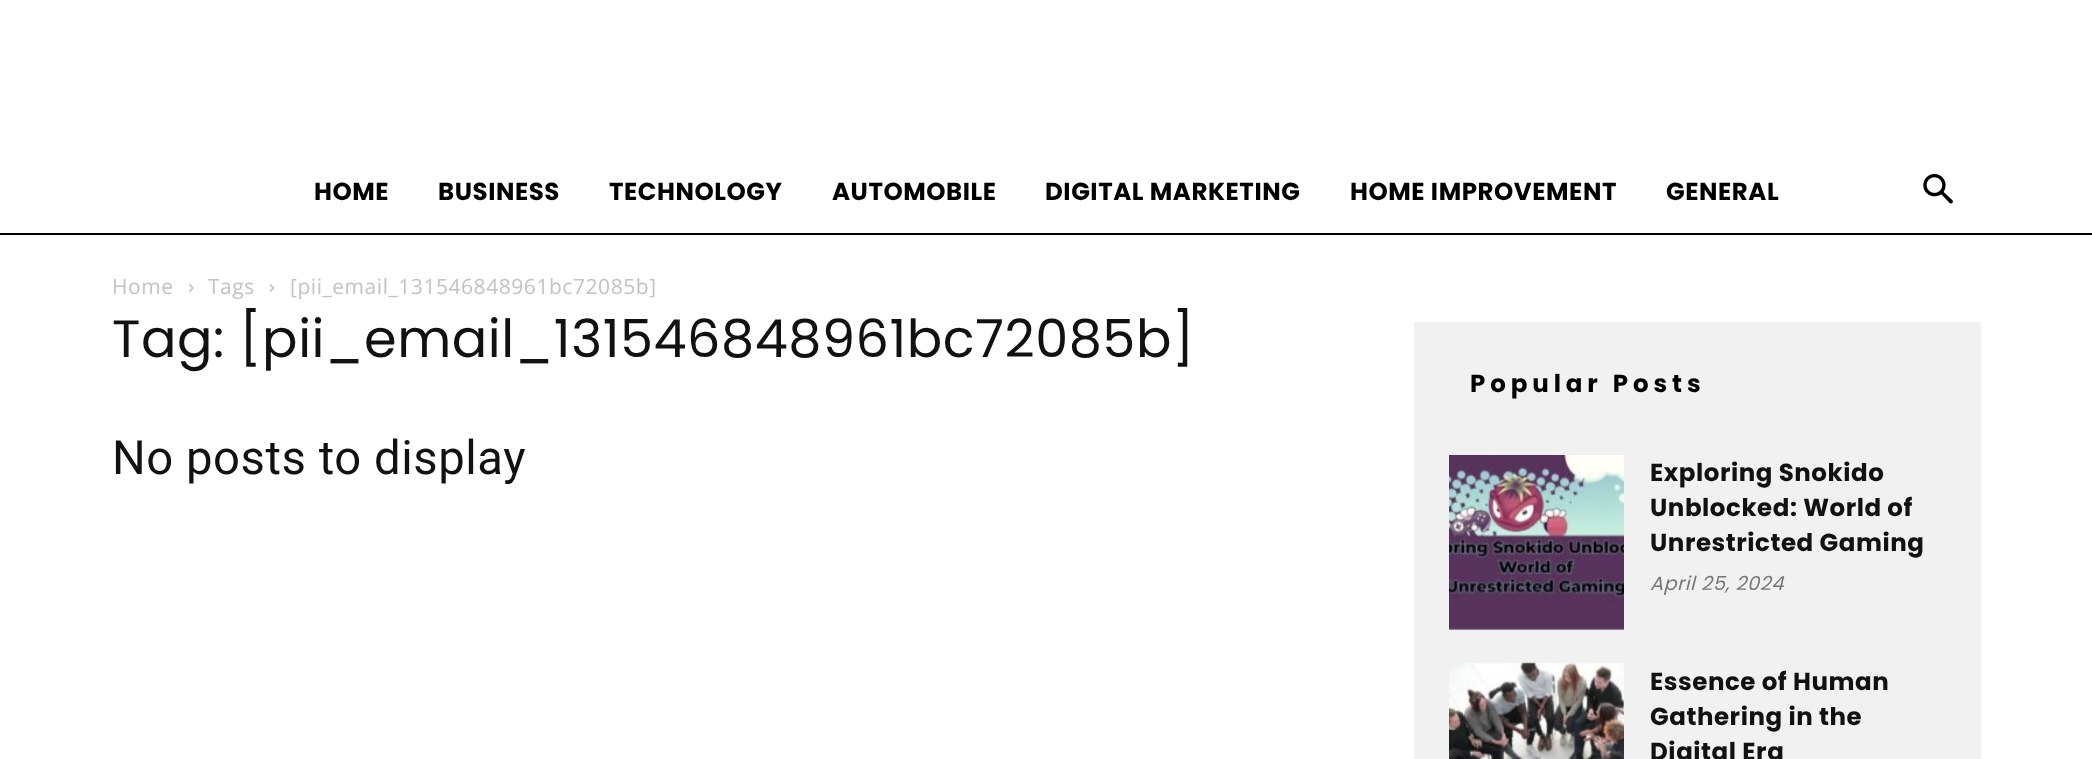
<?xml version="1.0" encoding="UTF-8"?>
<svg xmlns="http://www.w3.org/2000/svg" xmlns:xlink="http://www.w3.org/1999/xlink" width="2092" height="759">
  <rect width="100%" height="100%" fill="#ffffff" />
  <rect y="233" width="2092" height="2" fill="#000000" />
  <image x="1923" y="174" width="30" height="30" xlink:href="image1.png" />
  <image x="189" y="284" width="5" height="8" xlink:href="image2.png" />
  <image x="269" y="284" width="6" height="8" xlink:href="image3.png" />
  <rect x="1414" y="322" width="567" height="437" fill="#f1f1f1" />
  <image x="1449" y="455" width="175" height="175" xlink:href="image4.png" />
  <image x="1449" y="662" width="175" height="97" xlink:href="image5.png" />
  <text x="314" y="200" style="font-family: Poppins; font-size: 24.5px; font-weight: bold; letter-spacing: 0.55px; fill: #000000">HOME</text>
  <text x="438" y="200" style="font-family: Poppins; font-size: 24.5px; font-weight: bold; letter-spacing: 0.55px; fill: #000000">BUSINESS</text>
  <text x="609" y="200" style="font-family: Poppins; font-size: 24.5px; font-weight: bold; letter-spacing: 0.55px; fill: #000000">TECHNOLOGY</text>
  <text x="832" y="200" style="font-family: Poppins; font-size: 24.5px; font-weight: bold; letter-spacing: 0.55px; fill: #000000">AUTOMOBILE</text>
  <text x="1045" y="200" style="font-family: Poppins; font-size: 24.5px; font-weight: bold; letter-spacing: 0.55px; fill: #000000">DIGITAL MARKETING</text>
  <text x="1350" y="200" style="font-family: Poppins; font-size: 24.5px; font-weight: bold; letter-spacing: 0.55px; fill: #000000">HOME IMPROVEMENT</text>
  <text x="1666" y="200" style="font-family: Poppins; font-size: 24.5px; font-weight: bold; letter-spacing: 0.55px; fill: #000000">GENERAL</text>
  <text x="112" y="294" style="font-family: Open Sans; font-size: 21px; letter-spacing: 0.55px; fill: #c3c3c3">Home</text>
  <text x="208" y="294" style="font-family: Open Sans; font-size: 21px; letter-spacing: 0.55px; fill: #c3c3c3">Tags</text>
  <text x="290" y="294" style="font-family: Open Sans; font-size: 21px; letter-spacing: 0.55px; fill: #c3c3c3">[pii_email_131546848961bc72085b]</text>
  <text x="112" y="357" style="font-family: Poppins; font-size: 52.5px; letter-spacing: 0.55px; fill: #111111">Tag: [pii_email_131546848961bc72085b]</text>
  <text x="112" y="474" style="font-family: Roboto; font-size: 47.25px; letter-spacing: 0.55px; fill: #111111">No posts to display</text>
  <text x="1470" y="392" style="font-family: Poppins; font-size: 24.5px; font-weight: bold; letter-spacing: 4.9px; fill: #000000">Popular Posts</text>
  <text x="1650" y="481" style="font-family: Poppins; font-size: 24.5px; font-weight: bold; letter-spacing: 0.55px; fill: #111111">Exploring Snokido</text>
  <text x="1650" y="516" style="font-family: Poppins; font-size: 24.5px; font-weight: bold; letter-spacing: 0.55px; fill: #111111">Unblocked: World of</text>
  <text x="1650" y="551" style="font-family: Poppins; font-size: 24.5px; font-weight: bold; letter-spacing: 0.55px; fill: #111111">Unrestricted Gaming</text>
  <text x="1650" y="590" style="font-family: Poppins; font-size: 19.25px; font-style: italic; letter-spacing: 0.55px; fill: #767676">April 25, 2024</text>
  <text x="1650" y="690" style="font-family: Poppins; font-size: 24.5px; font-weight: bold; letter-spacing: 0.55px; fill: #111111">Essence of Human</text>
  <text x="1650" y="725" style="font-family: Poppins; font-size: 24.5px; font-weight: bold; letter-spacing: 0.55px; fill: #111111">Gathering in the</text>
  <text x="1650" y="760" style="font-family: Poppins; font-size: 24.5px; font-weight: bold; letter-spacing: 0.55px; fill: #111111">Digital Era</text>
</svg>
